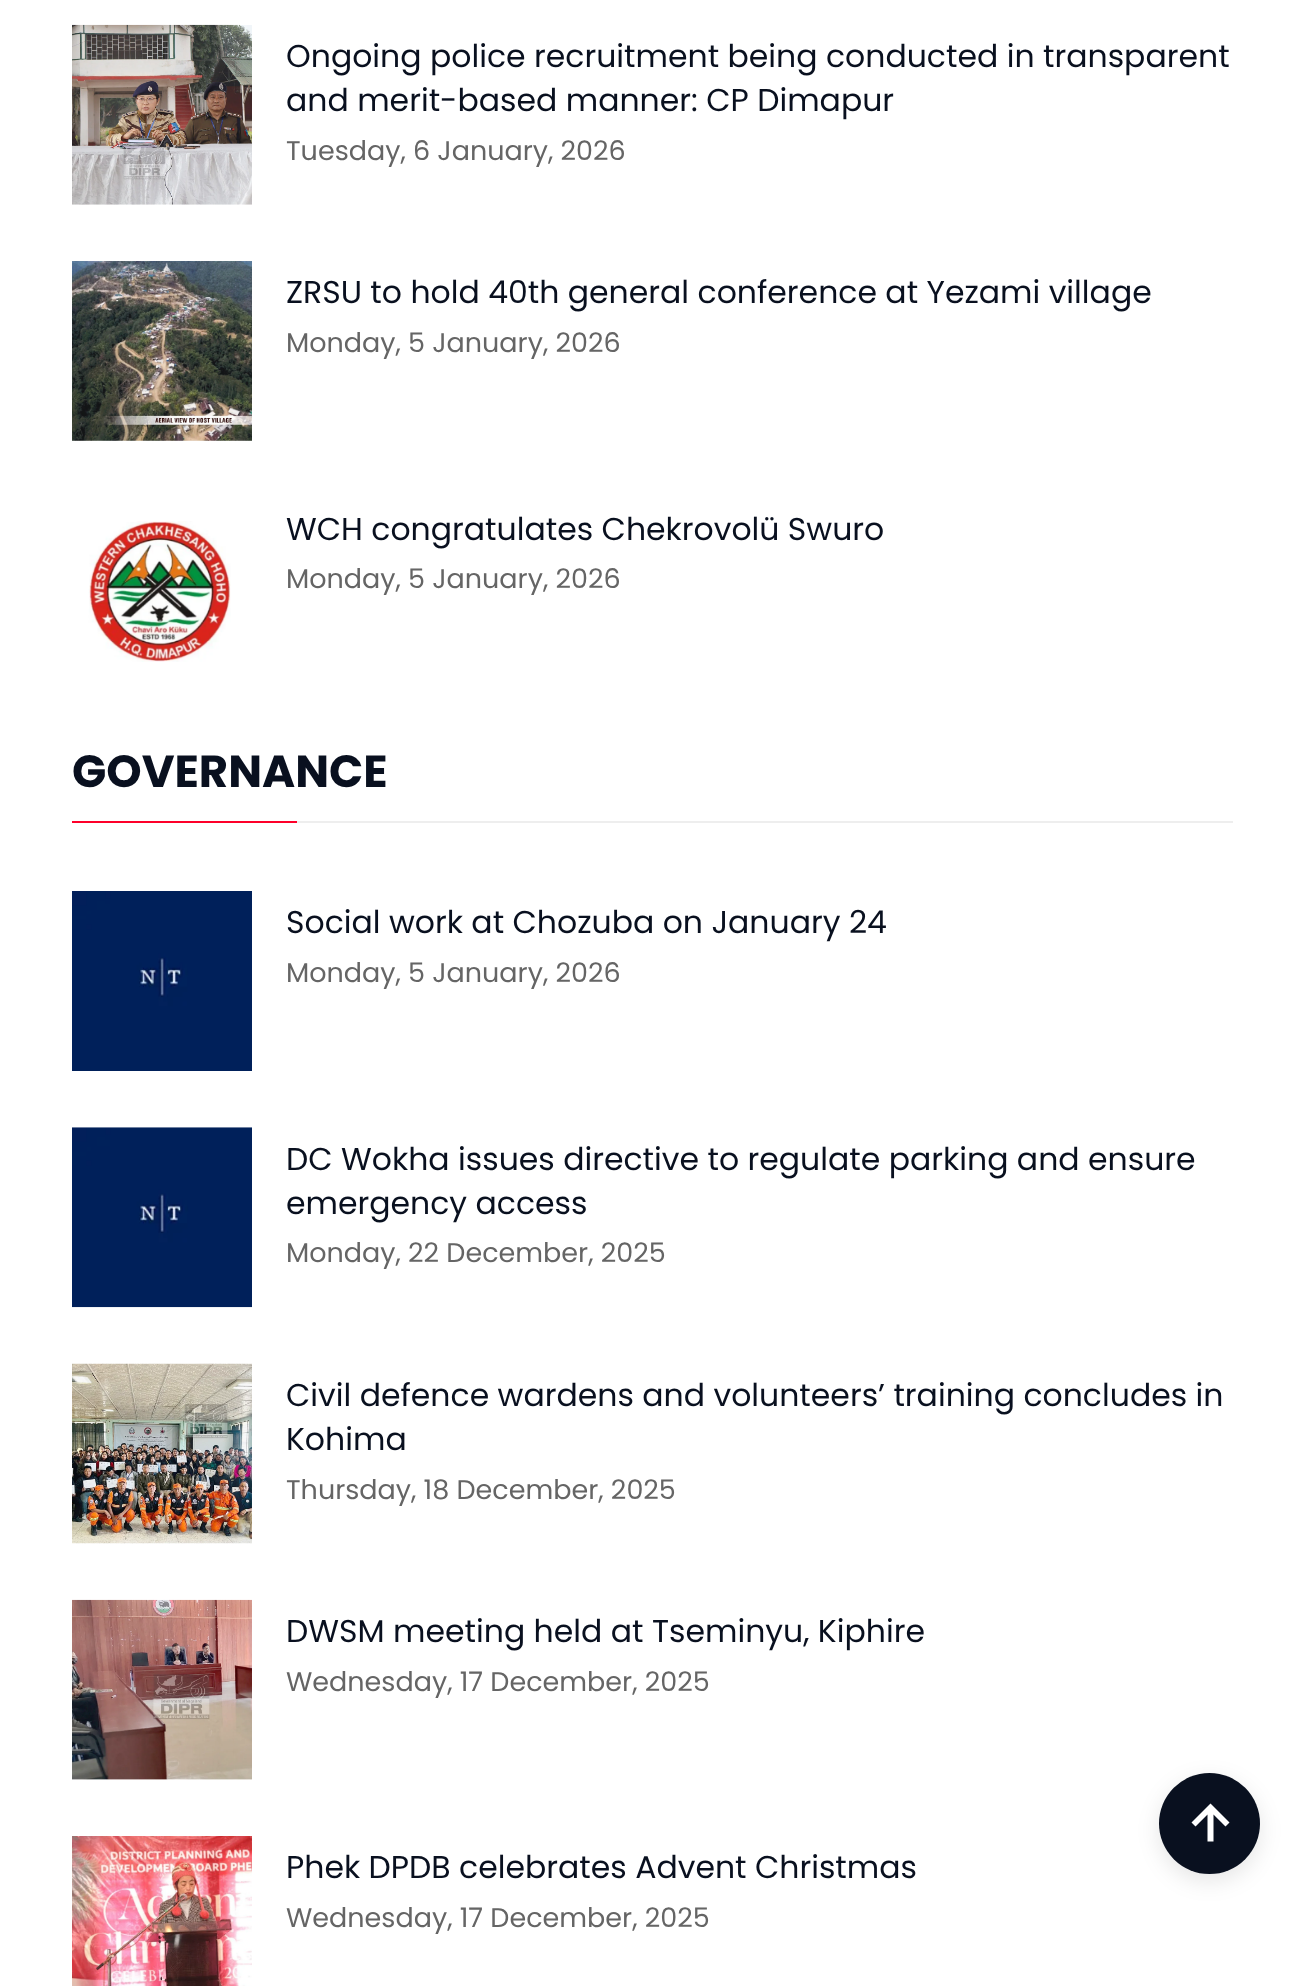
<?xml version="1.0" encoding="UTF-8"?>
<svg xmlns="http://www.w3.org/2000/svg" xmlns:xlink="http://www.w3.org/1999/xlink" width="1304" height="1986">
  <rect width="100%" height="100%" fill="#ffffff" />
  <image x="72" y="24" width="180" height="181" xlink:href="image1.png" />
  <image x="72" y="261" width="180" height="180" xlink:href="image2.png" />
  <image x="88" y="521" width="143" height="141" xlink:href="image3.png" />
  <rect x="297" y="821" width="936" height="2" fill="#eeeeee" />
  <rect x="72" y="821" width="225" height="2" fill="#fe002a" />
  <image x="72" y="891" width="180" height="180" xlink:href="image4.png" />
  <image x="72" y="1127" width="180" height="181" xlink:href="image5.png" />
  <image x="72" y="1363" width="180" height="181" xlink:href="image6.png" />
  <image x="72" y="1599" width="180" height="181" xlink:href="image7.png" />
  <image x="72" y="1836" width="180" height="150" xlink:href="image8.png" />
  <rect x="1159" y="1780" width="101" height="101" rx="50.5" fill="#000000" fill-opacity="0.1" filter="blur(11px)" />
  <circle cx="1209.5" cy="1823.5" r="50.5" fill="#09101f" />
  <path d="M 1207.5 1814.5 v 27 h 6 v -27 l 12 12 l 4 -4 l -19 -19 l -19 19 l 4 4 z" fill="#ffffff" />
  <text x="286" y="67" style="font-family: Poppins; font-size: 31.5px; fill: #09101f">Ongoing police recruitment being conducted in transparent</text>
  <text x="286" y="111" style="font-family: Poppins; font-size: 31.5px; fill: #09101f">and merit-based manner: CP Dimapur</text>
  <text x="286" y="160" style="font-family: Poppins; font-size: 27px; fill: #656565">Tuesday, 6 January, 2026</text>
  <text x="286" y="303" style="font-family: Poppins; font-size: 31.5px; fill: #09101f">ZRSU to hold 40th general conference at Yezami village</text>
  <text x="286" y="352" style="font-family: Poppins; font-size: 27px; fill: #656565">Monday, 5 January, 2026</text>
  <text x="286" y="540" style="font-family: Poppins; font-size: 31.5px; fill: #09101f">WCH congratulates Chekrovolü Swuro</text>
  <text x="286" y="588" style="font-family: Poppins; font-size: 27px; fill: #656565">Monday, 5 January, 2026</text>
  <text x="72" y="787" style="font-family: Poppins; font-size: 45px; font-weight: bold; fill: #09101f">GOVERNANCE</text>
  <text x="286" y="933" style="font-family: Poppins; font-size: 31.5px; fill: #09101f">Social work at Chozuba on January 24</text>
  <text x="286" y="982" style="font-family: Poppins; font-size: 27px; fill: #656565">Monday, 5 January, 2026</text>
  <text x="286" y="1170" style="font-family: Poppins; font-size: 31.5px; fill: #09101f">DC Wokha issues directive to regulate parking and ensure</text>
  <text x="286" y="1214" style="font-family: Poppins; font-size: 31.5px; fill: #09101f">emergency access</text>
  <text x="286" y="1262" style="font-family: Poppins; font-size: 27px; fill: #656565">Monday, 22 December, 2025</text>
  <text x="286" y="1406" style="font-family: Poppins; font-size: 31.5px; fill: #09101f">Civil defence wardens and volunteers’ training concludes in</text>
  <text x="286" y="1450" style="font-family: Poppins; font-size: 31.5px; fill: #09101f">Kohima</text>
  <text x="286" y="1499" style="font-family: Poppins; font-size: 27px; fill: #656565">Thursday, 18 December, 2025</text>
  <text x="286" y="1642" style="font-family: Poppins; font-size: 31.5px; fill: #09101f">DWSM meeting held at Tseminyu, Kiphire</text>
  <text x="286" y="1691" style="font-family: Poppins; font-size: 27px; fill: #656565">Wednesday, 17 December, 2025</text>
  <text x="286" y="1878" style="font-family: Poppins; font-size: 31.5px; fill: #09101f">Phek DPDB celebrates Advent Christmas</text>
  <text x="286" y="1927" style="font-family: Poppins; font-size: 27px; fill: #656565">Wednesday, 17 December, 2025</text>
</svg>
